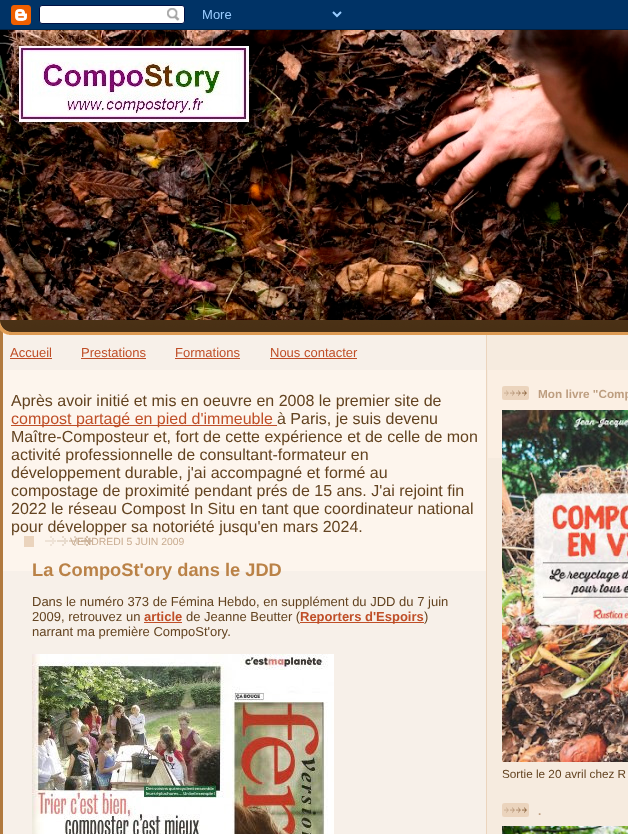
<?xml version="1.0" encoding="UTF-8"?>
<svg xmlns="http://www.w3.org/2000/svg" xmlns:xlink="http://www.w3.org/1999/xlink" width="628" height="834">
  <rect width="100%" height="100%" fill="#ffffff" />
  <image x="0" y="325" width="628" height="10" xlink:href="image1.png" />
  <image x="0" y="0" width="628" height="30" xlink:href="image2.png" />
  <image x="0" y="320" width="628" height="15" xlink:href="image3.png" />
  <image x="0" y="30" width="628" height="290" xlink:href="image4.png" />
  <image x="0" y="335" width="628" height="499" xlink:href="image5.png" />
  <rect x="10" y="358" width="42" height="1" fill="#bf4e27" />
  <rect x="81" y="358" width="65" height="1" fill="#bf4e27" />
  <rect x="175" y="358" width="65" height="1" fill="#bf4e27" />
  <rect x="270" y="358" width="87" height="1" fill="#bf4e27" />
  <rect x="3" y="370" width="483" height="201" fill="#fdf5ed" />
  <rect x="11" y="425" width="266" height="1" fill="#bf4e27" />
  <rect x="24" y="536" width="10" height="11" fill="#ebd4bd" />
  <image x="45" y="536" width="47" height="10" xlink:href="image6.png" />
  <rect x="144" y="622" width="38" height="1" fill="#bf4e27" />
  <rect x="300" y="622" width="124" height="1" fill="#bf4e27" />
  <image x="32" y="654" width="302" height="180" xlink:href="image7.png" />
  <rect x="488" y="370" width="140" height="88" fill="#fbefe3" />
  <image x="502" y="386" width="27" height="14" xlink:href="image8.png" />
  <image x="502" y="410" width="126" height="352" xlink:href="image9.png" />
  <image x="502" y="803" width="27" height="14" xlink:href="image10.png" />
  <image x="502" y="826" width="126" height="8" xlink:href="image11.png" />
  <text x="10" y="357" style="font-family: Liberation Sans; font-size: 13px; fill: #bf4e27">Accueil</text>
  <text x="81" y="357" style="font-family: Liberation Sans; font-size: 13px; fill: #bf4e27">Prestations</text>
  <text x="175" y="357" style="font-family: Liberation Sans; font-size: 13px; fill: #bf4e27">Formations</text>
  <text x="270" y="357" style="font-family: Liberation Sans; font-size: 13px; fill: #bf4e27">Nous contacter</text>
  <text x="11" y="406" style="font-family: Liberation Sans; font-size: 16px; fill: #634320">Après avoir initié et mis en oeuvre en 2008 le premier site de</text>
  <text x="11" y="424" style="font-family: Liberation Sans; font-size: 16px; fill: #bf4e27">compost partagé en pied d'immeuble</text>
  <text x="277" y="424" style="font-family: Liberation Sans; font-size: 16px; fill: #634320">à Paris, je suis devenu</text>
  <text x="11" y="442" style="font-family: Liberation Sans; font-size: 16px; fill: #634320">Maître-Composteur et, fort de cette expérience et de celle de mon</text>
  <text x="11" y="460" style="font-family: Liberation Sans; font-size: 16px; fill: #634320">activité professionnelle de consultant-formateur en</text>
  <text x="11" y="478" style="font-family: Liberation Sans; font-size: 16px; fill: #634320">développement durable, j'ai accompagné et formé au</text>
  <text x="11" y="496" style="font-family: Liberation Sans; font-size: 16px; fill: #634320">compostage de proximité pendant prés de 15 ans. J'ai rejoint fin</text>
  <text x="11" y="514" style="font-family: Liberation Sans; font-size: 16px; fill: #634320">2022 le réseau Compost In Situ en tant que coordinateur national</text>
  <text x="11" y="532" style="font-family: Liberation Sans; font-size: 16px; fill: #634320">pour développer sa notoriété jusqu'en mars 2024.</text>
  <text x="70" y="545" style="font-family: Liberation Sans; font-size: 10.4px; fill: #c8ab8f">VENDREDI 5 JUIN 2009</text>
  <text x="32" y="576" style="font-family: Liberation Sans; font-size: 18.25px; font-weight: bold; fill: #ba8247">La CompoSt'ory dans le JDD</text>
  <text x="32" y="606" style="font-family: Liberation Sans; font-size: 13px; fill: #634320">Dans le numéro 373 de Fémina Hebdo, en supplément du JDD du 7 juin</text>
  <text x="32" y="621" style="font-family: Liberation Sans; font-size: 13px; fill: #634320">2009, retrouvez un</text>
  <text x="144" y="621" style="font-family: Liberation Sans; font-size: 13px; font-weight: bold; fill: #bf4e27">article</text>
  <text x="186" y="621" style="font-family: Liberation Sans; font-size: 13px; fill: #634320">de Jeanne Beutter (</text>
  <text x="300" y="621" style="font-family: Liberation Sans; font-size: 13px; font-weight: bold; fill: #bf4e27">Reporters d'Espoirs</text>
  <text x="424" y="621" style="font-family: Liberation Sans; font-size: 13px; fill: #634320">)</text>
  <text x="32" y="636" style="font-family: Liberation Sans; font-size: 13px; fill: #634320">narrant ma première CompoSt'ory.</text>
  <text x="538" y="398" style="font-family: Liberation Sans; font-size: 11.75px; font-weight: bold; fill: #bd9e80">Mon livre "Comp</text>
  <text x="502" y="778" style="font-family: Liberation Sans; font-size: 11.75px; fill: #634320">Sortie le 20 avril chez R</text>
  <text x="538" y="815" style="font-family: Liberation Sans; font-size: 11.75px; font-weight: bold; fill: #bd9e80">.</text>
</svg>
